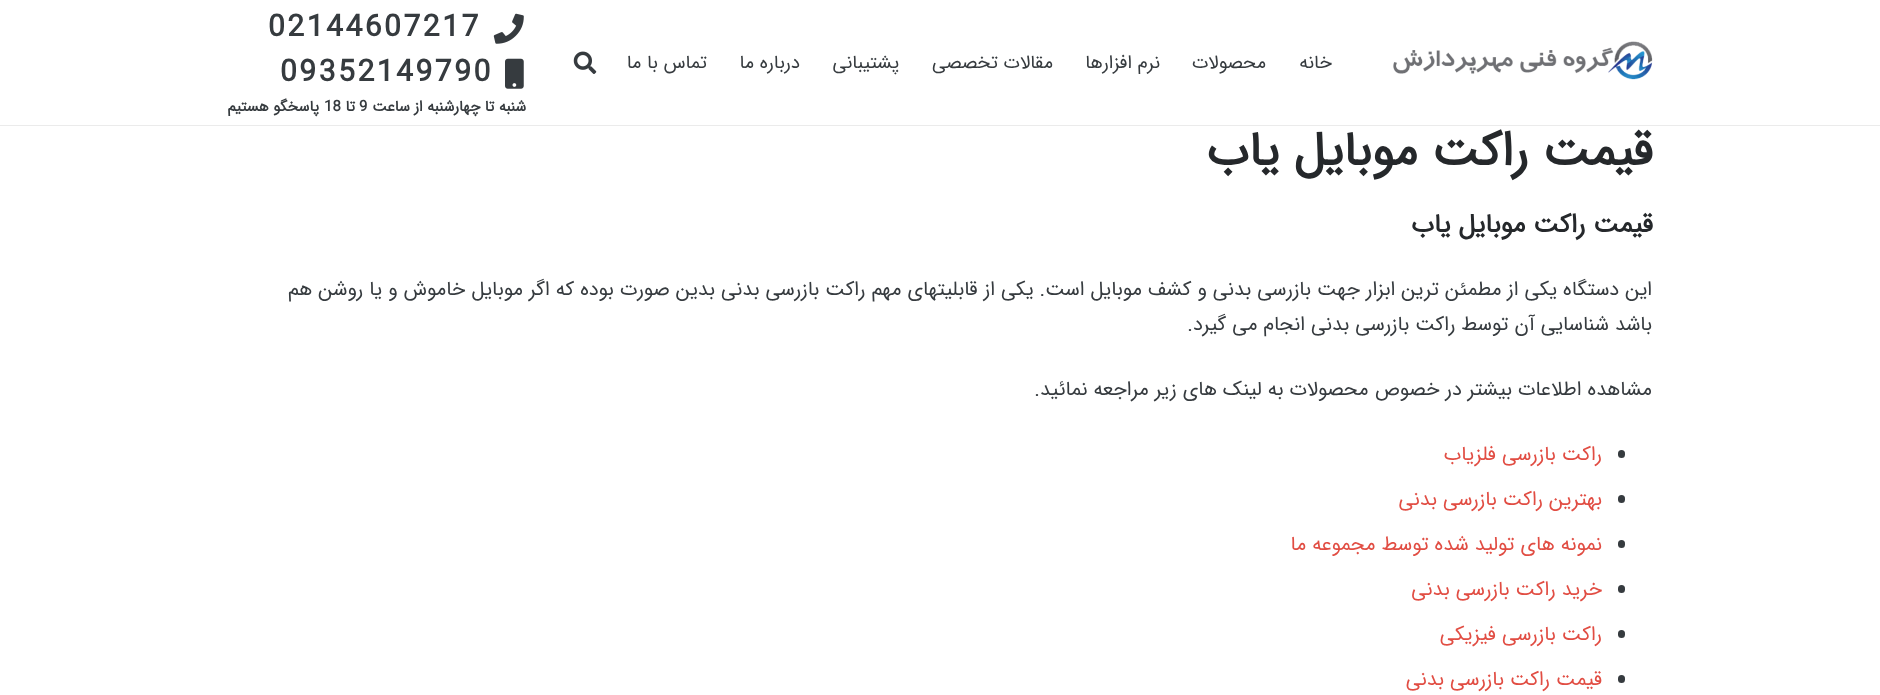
<?xml version="1.0" encoding="UTF-8"?>
<svg xmlns="http://www.w3.org/2000/svg" xmlns:xlink="http://www.w3.org/1999/xlink" width="1880" height="695">
  <rect width="100%" height="100%" fill="#ffffff" />
  <rect y="125" width="1880" height="1" fill="#ebebeb" />
  <image x="1393" y="41" width="260" height="39" xlink:href="image1.png" />
  <image x="573" y="51" width="24" height="23" xlink:href="image2.png" />
  <image x="493" y="13" width="31" height="31" xlink:href="image3.png" />
  <image x="505" y="58" width="19" height="31" xlink:href="image4.png" />
  <rect x="1618" y="450" width="7" height="8" rx="3.5" fill="#363b3f" />
  <rect x="1618" y="495" width="7" height="8" rx="3.5" fill="#363b3f" />
  <rect x="1618" y="540" width="7" height="8" rx="3.5" fill="#363b3f" />
  <rect x="1618" y="585" width="7" height="8" rx="3.5" fill="#363b3f" />
  <rect x="1618" y="630" width="7" height="8" rx="3.5" fill="#363b3f" />
  <rect x="1618" y="675" width="7" height="8" rx="3.5" fill="#363b3f" />
  <text x="1332" y="68" style="font-family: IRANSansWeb; font-size: 18.75px; direction: rtl; fill: #363b3f">خانه</text>
  <text x="1266" y="68" style="font-family: IRANSansWeb; font-size: 18.75px; direction: rtl; fill: #363b3f">محصولات</text>
  <text x="1160" y="68" style="font-family: IRANSansWeb; font-size: 18.75px; direction: rtl; fill: #363b3f">نرم افزارها</text>
  <text x="1053" y="68" style="font-family: IRANSansWeb; font-size: 18.75px; direction: rtl; fill: #363b3f">مقالات تخصصی</text>
  <text x="899" y="68" style="font-family: IRANSansWeb; font-size: 18.75px; direction: rtl; fill: #363b3f">پشتیبانی</text>
  <text x="800" y="68" style="font-family: IRANSansWeb; font-size: 18.75px; direction: rtl; fill: #363b3f">درباره ما</text>
  <text x="707" y="68" style="font-family: IRANSansWeb; font-size: 18.75px; direction: rtl; fill: #363b3f">تماس با ما</text>
  <text x="268" y="36" style="font-family: IRANSansWeb; font-size: 30px; font-weight: bold; letter-spacing: 2.5px; fill: #363b3f">02144607217</text>
  <text x="280" y="81" style="font-family: IRANSansWeb; font-size: 30px; font-weight: bold; letter-spacing: 2.5px; fill: #363b3f">09352149790</text>
  <text x="526" y="111" style="font-family: IRANSansWeb; font-size: 15px; font-weight: bold; direction: rtl; fill: #363b3f">شنبه تا چهارشنبه از ساعت</text>
  <text x="359" y="111" style="font-family: IRANSansWeb; font-size: 15px; font-weight: bold; fill: #363b3f">9</text>
  <text x="355" y="111" style="font-family: IRANSansWeb; font-size: 15px; font-weight: bold; direction: rtl; fill: #363b3f">تا</text>
  <text x="324" y="111" style="font-family: IRANSansWeb; font-size: 15px; font-weight: bold; fill: #363b3f">18</text>
  <text x="319" y="111" style="font-family: IRANSansWeb; font-size: 15px; font-weight: bold; direction: rtl; fill: #363b3f">پاسخگو هستیم</text>
  <text x="1653" y="165" style="font-family: IRANSansWeb; font-size: 48px; font-weight: bold; direction: rtl; fill: #25282b">قیمت راکت موبایل یاب</text>
  <text x="1653" y="232" style="font-family: IRANSansWeb; font-size: 26px; font-weight: bold; direction: rtl; fill: #25282b">قیمت راکت موبایل یاب</text>
  <text x="1652" y="295" style="font-family: IRANSansWeb; font-size: 20px; direction: rtl; fill: #363b3f">این دستگاه یکی از مطمئن ترین ابزار جهت بازرسی بدنی و کشف موبایل است. یکی از قابلیتهای مهم راکت بازرسی بدنی بدین صورت بوده که اگر موبایل خاموش و یا روشن هم</text>
  <text x="1652" y="330" style="font-family: IRANSansWeb; font-size: 20px; direction: rtl; fill: #363b3f">باشد شناسایی آن توسط راکت بازرسی بدنی انجام می گیرد.</text>
  <text x="1652" y="395" style="font-family: IRANSansWeb; font-size: 20px; direction: rtl; fill: #363b3f">مشاهده اطلاعات بیشتر در خصوص محصولات به لینک های زیر مراجعه نمائید.</text>
  <text x="1602" y="460" style="font-family: IRANSansWeb; font-size: 20px; direction: rtl; fill: #e14d43">راکت بازرسی فلزیاب</text>
  <text x="1602" y="505" style="font-family: IRANSansWeb; font-size: 20px; direction: rtl; fill: #e14d43">بهترین راکت بازرسی بدنی</text>
  <text x="1602" y="550" style="font-family: IRANSansWeb; font-size: 20px; direction: rtl; fill: #e14d43">نمونه های تولید شده توسط مجموعه ما</text>
  <text x="1602" y="595" style="font-family: IRANSansWeb; font-size: 20px; direction: rtl; fill: #e14d43">خرید راکت بازرسی بدنی</text>
  <text x="1602" y="640" style="font-family: IRANSansWeb; font-size: 20px; direction: rtl; fill: #e14d43">راکت بازرسی فیزیکی</text>
  <text x="1602" y="685" style="font-family: IRANSansWeb; font-size: 20px; direction: rtl; fill: #e14d43">قیمت راکت بازرسی بدنی</text>
</svg>
